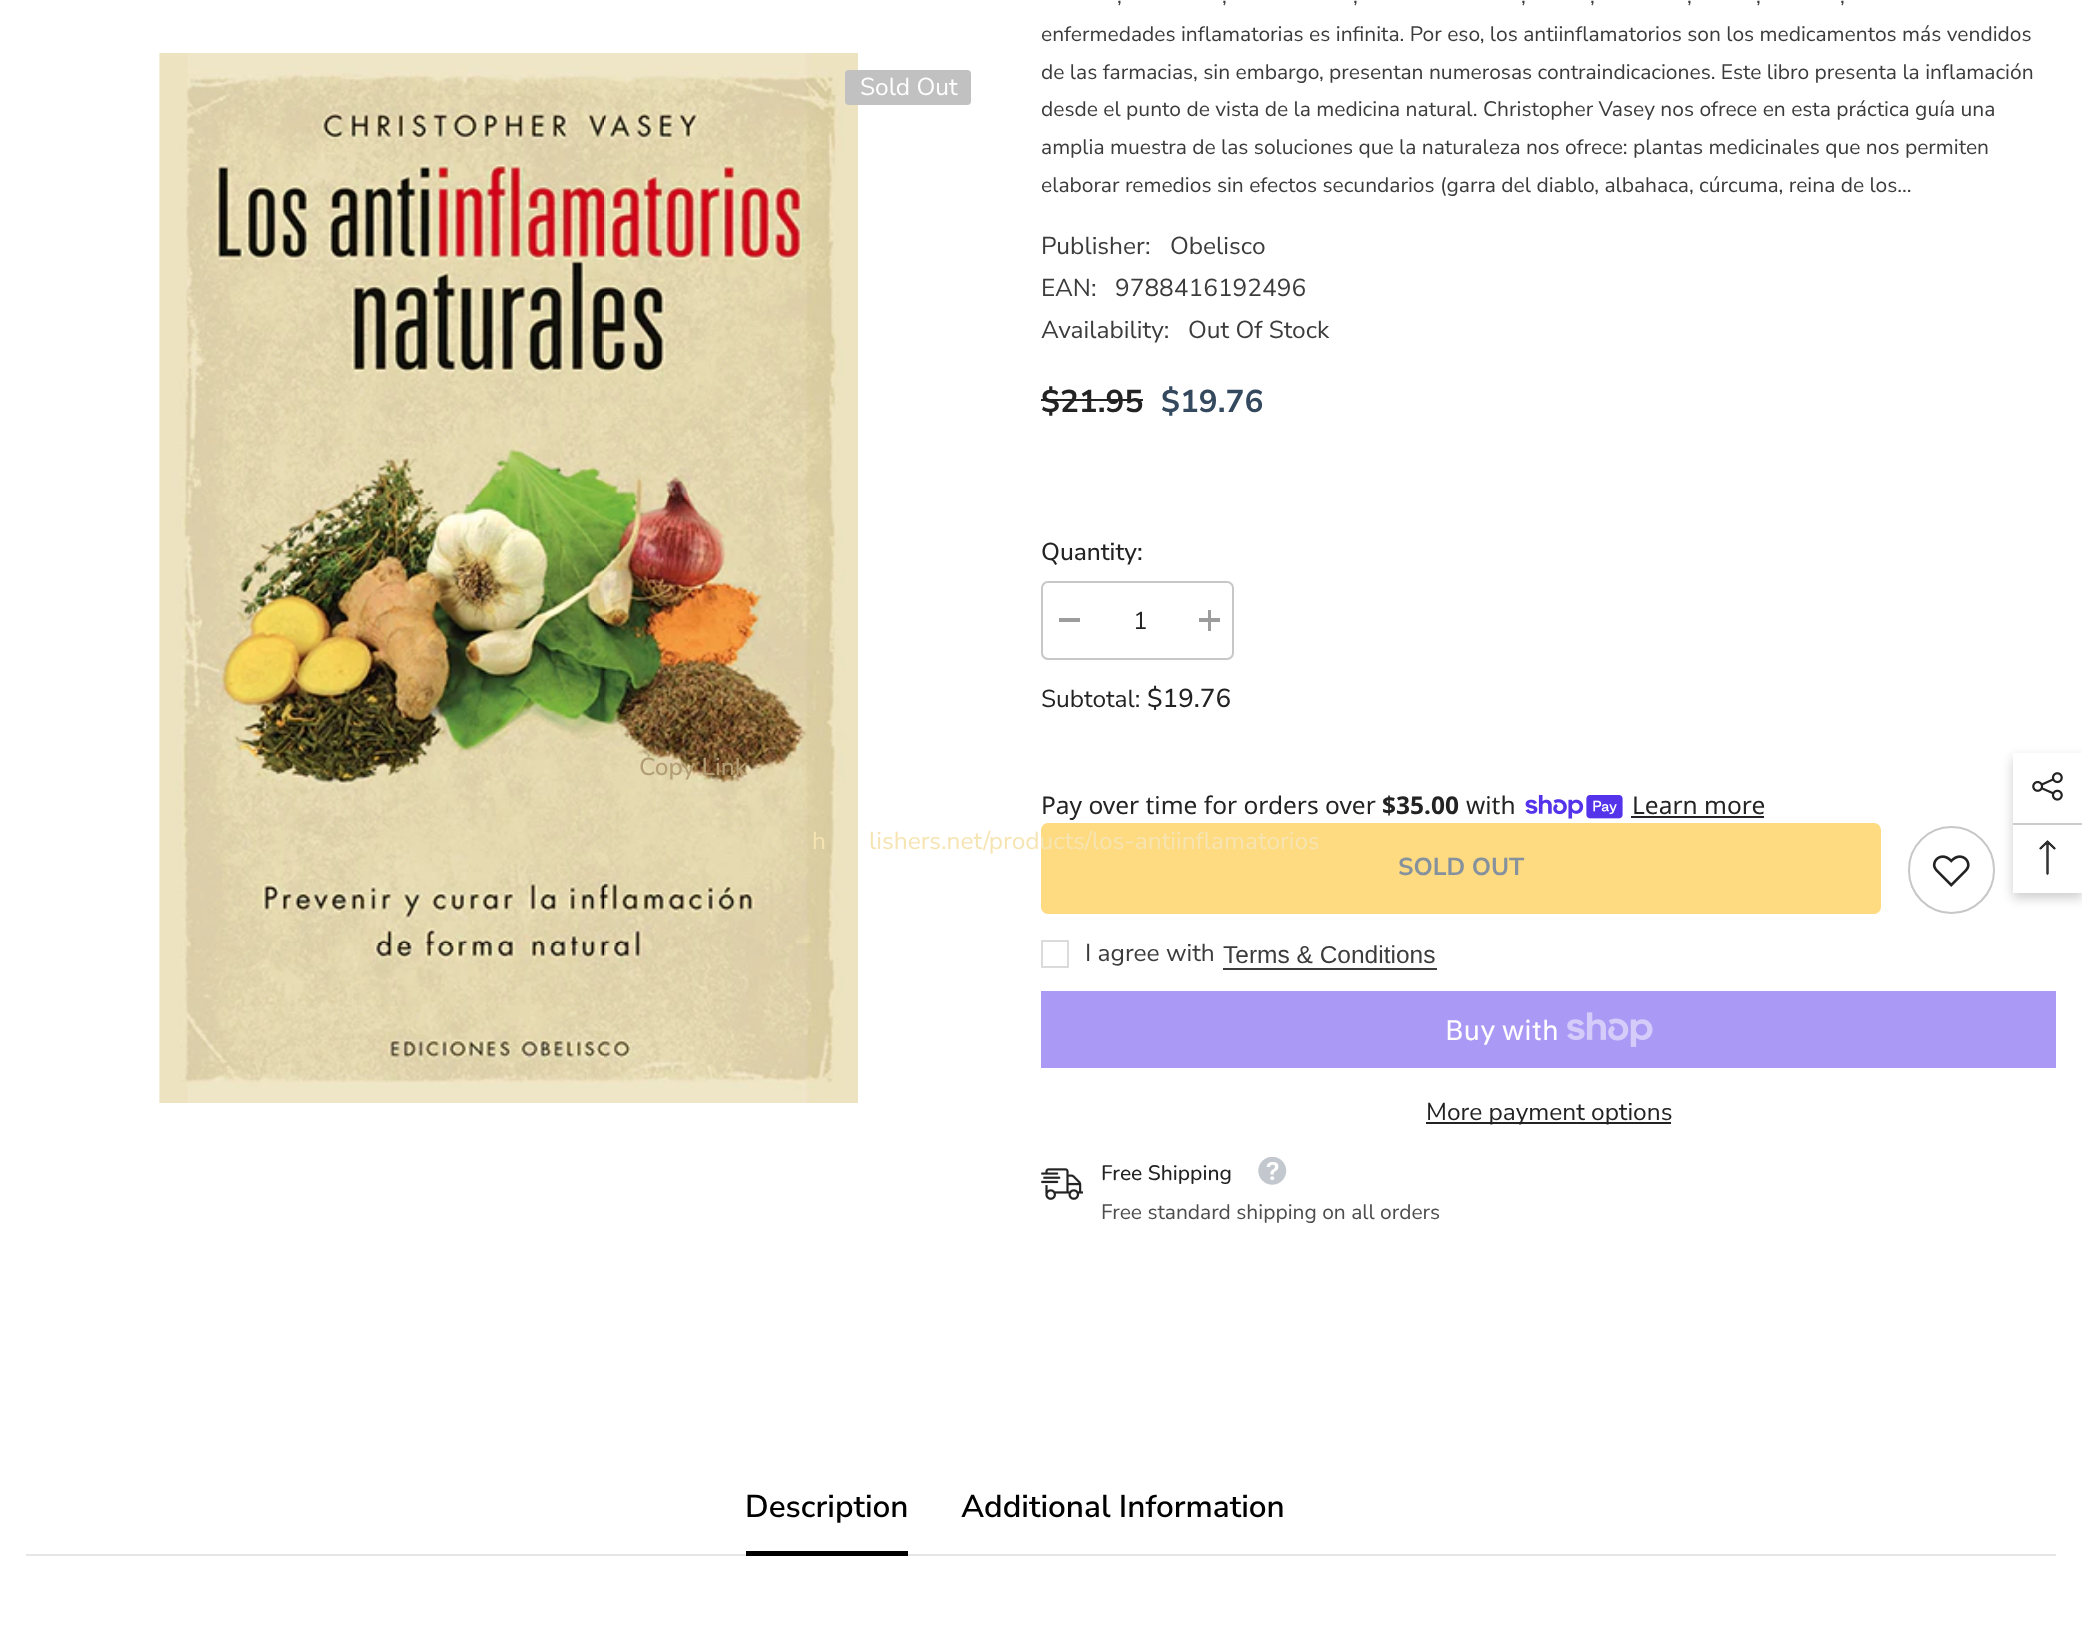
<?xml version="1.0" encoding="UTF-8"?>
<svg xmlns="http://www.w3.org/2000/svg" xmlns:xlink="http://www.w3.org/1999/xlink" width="2082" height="1642">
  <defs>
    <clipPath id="clip1"><rect x="667" y="823" width="651" height="42" /></clipPath>
  </defs>
  <rect width="100%" height="100%" fill="#ffffff" />
  <rect x="1041" y="399" width="102" height="2" fill="#232323" />
  <rect x="1042" y="582" width="191" height="77" rx="6" fill="none" stroke="#c7c7c7" stroke-width="2" />
  <rect x="1059" y="618" width="21" height="4" fill="#9c9c9c" />
  <rect x="1199" y="618" width="21" height="4" fill="#9c9c9c" />
  <rect x="1208" y="610" width="3" height="21" fill="#9c9c9c" />
  <rect x="1042" y="824" width="838" height="89" rx="6" fill="#feda81" stroke="#feda81" stroke-width="2" />
  <rect x="1909" y="827" width="85" height="86" rx="42.5" fill="none" stroke="#c7c7c7" stroke-width="2" />
  <image x="1932" y="855" width="38" height="32" xlink:href="image1.png" />
  <rect x="1042" y="941" width="26" height="26" fill="none" stroke="#dbdbdb" stroke-width="2" />
  <rect x="1223" y="968" width="214" height="2" fill="#3c3c3c" />
  <rect x="1041" y="991" width="1015" height="77" fill="#aa99f5" />
  <image x="1567" y="1012" width="86" height="35" xlink:href="image2.png" />
  <rect x="1426" y="1122" width="245" height="2" fill="#232323" />
  <image x="1525" y="795" width="98" height="24" xlink:href="image3.png" />
  <rect x="1631" y="816" width="133" height="2" fill="#232323" />
  <image x="1041" y="1168" width="42" height="32" xlink:href="image4.png" />
  <image x="1258" y="1157" width="29" height="28" xlink:href="image5.png" />
  <image x="159" y="53" width="699" height="1050" xlink:href="image6.png" />
  <rect x="845" y="70" width="126" height="35" rx="4" fill="#c1c1c1" />
  <rect x="26" y="1554" width="2030" height="2" fill="#e6e6e6" />
  <rect x="746" y="1551" width="162" height="5" fill="#000000" />
  <rect x="2013" y="758" width="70" height="140" fill="#000000" fill-opacity="0.2" filter="blur(6px)" />
  <rect x="2013" y="753" width="69" height="140" fill="#ffffff" />
  <image x="2032" y="772" width="31" height="29" xlink:href="image7.png" />
  <rect x="2013" y="823" width="69" height="2" fill="#cccccc" />
  <image x="2039" y="840" width="17" height="35" xlink:href="image8.png" />
  <text x="1117" y="3" style="font-family: Nunito Sans; font-size: 21px; fill: #3c3c3c">,</text>
  <text x="1222" y="3" style="font-family: Nunito Sans; font-size: 21px; fill: #3c3c3c">,</text>
  <text x="1353" y="3" style="font-family: Nunito Sans; font-size: 21px; fill: #3c3c3c">,</text>
  <text x="1521" y="3" style="font-family: Nunito Sans; font-size: 21px; fill: #3c3c3c">,</text>
  <text x="1590" y="3" style="font-family: Nunito Sans; font-size: 21px; fill: #3c3c3c">,</text>
  <text x="1687" y="3" style="font-family: Nunito Sans; font-size: 21px; fill: #3c3c3c">,</text>
  <text x="1756" y="3" style="font-family: Nunito Sans; font-size: 21px; fill: #3c3c3c">,</text>
  <text x="1840" y="3" style="font-family: Nunito Sans; font-size: 21px; fill: #3c3c3c">,</text>
  <text x="1041" y="41" style="font-family: Nunito Sans; font-size: 21px; fill: #3c3c3c">enfermedades inflamatorias es infinita. Por eso, los antiinflamatorios son los medicamentos más vendidos</text>
  <text x="1041" y="79" style="font-family: Nunito Sans; font-size: 21px; fill: #3c3c3c">de las farmacias, sin embargo, presentan numerosas contraindicaciones. Este libro presenta la inflamación</text>
  <text x="1041" y="116" style="font-family: Nunito Sans; font-size: 21px; fill: #3c3c3c">desde el punto de vista de la medicina natural. Christopher Vasey nos ofrece en esta práctica guía una</text>
  <text x="1041" y="154" style="font-family: Nunito Sans; font-size: 21px; fill: #3c3c3c">amplia muestra de las soluciones que la naturaleza nos ofrece: plantas medicinales que nos permiten</text>
  <text x="1041" y="192" style="font-family: Nunito Sans; font-size: 21px; fill: #3c3c3c">elaborar remedios sin efectos secundarios (garra del diablo, albahaca, cúrcuma, reina de los...</text>
  <text x="1041" y="254" style="font-family: Nunito Sans; font-size: 24.5px; fill: #3c3c3c">Publisher:</text>
  <text x="1170" y="254" style="font-family: Nunito Sans; font-size: 24.5px; fill: #3c3c3c">Obelisco</text>
  <text x="1041" y="296" style="font-family: Nunito Sans; font-size: 24.5px; fill: #3c3c3c">EAN:</text>
  <text x="1115" y="296" style="font-family: Nunito Sans; font-size: 24.5px; fill: #3c3c3c">9788416192496</text>
  <text x="1041" y="338" style="font-family: Nunito Sans; font-size: 24.5px; fill: #3c3c3c">Availability:</text>
  <text x="1188" y="338" style="font-family: Nunito Sans; font-size: 24.5px; fill: #3c3c3c">Out Of Stock</text>
  <text x="1041" y="412" style="font-family: Nunito Sans; font-size: 31.5px; font-weight: bold; fill: #232323">$21.95</text>
  <text x="1161" y="412" style="font-family: Nunito Sans; font-size: 31.5px; font-weight: bold; fill: #34495e">$19.76</text>
  <text x="1041" y="560" style="font-family: Nunito Sans; font-size: 24.5px; font-weight: 500; fill: #232323">Quantity:</text>
  <text x="1133" y="629" style="font-family: Nunito Sans; font-size: 24.5px; fill: #232323">1</text>
  <text x="1041" y="707" style="font-family: Nunito Sans; font-size: 24.5px; fill: #232323">Subtotal:</text>
  <text x="1147" y="707" style="font-family: Nunito Sans; font-size: 26px; font-weight: 500; fill: #232323">$19.76</text>
  <text x="639" y="775" style="font-family: Nunito Sans; font-size: 24.5px; font-weight: 500; fill: #b39d74">Copy Link</text>
  <text x="812" y="849" style="font-family: Nunito Sans; font-size: 24.5px; fill: #f6e4b2">h</text>
  <g clip-path="url(#clip1)">
    <text x="869" y="849" style="font-family: Nunito Sans; font-size: 24.5px; fill: #f6e4b2">lishers.net/products/los-antiinflamatorios</text>
  </g>
  <text x="1398" y="875" style="font-family: Nunito Sans; font-size: 24.5px; font-weight: bold; fill: #85929e">SOLD OUT</text>
  <text x="1085" y="961" style="font-family: Nunito Sans; font-size: 24.5px; fill: #3c3c3c">I agree with</text>
  <text x="1223" y="963" style="font-family: Liberation Sans; font-size: 24.5px; fill: #3c3c3c">Terms &amp; Conditions</text>
  <text x="1445" y="1040" style="font-family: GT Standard; font-size: 28px; fill: #ffffff">Buy with</text>
  <text x="1426" y="1120" style="font-family: Nunito Sans; font-size: 24.5px; fill: #232323">More payment options</text>
  <text x="1041" y="814" style="font-family: Noto Sans; font-size: 24.5px; fill: #232323">Pay over time for orders over</text>
  <text x="1382" y="814" style="font-family: Noto Sans; font-size: 24.5px; font-weight: bold; fill: #232323">$35.00</text>
  <text x="1466" y="814" style="font-family: Noto Sans; font-size: 24.5px; fill: #232323">with</text>
  <text x="1632" y="814" style="font-family: Noto Sans; font-size: 24.5px; fill: #232323">Learn more</text>
  <text x="1101" y="1180" style="font-family: Nunito; font-size: 21px; font-weight: 500; fill: #232323">Free Shipping</text>
  <text x="1101" y="1219" style="font-family: Nunito Sans; font-size: 21px; fill: #4d4d4d">Free standard shipping on all orders</text>
  <text x="860" y="95" style="font-family: Nunito Sans; font-size: 24.5px; fill: #ffffff">Sold Out</text>
  <text x="745" y="1517" style="font-family: Nunito Sans; font-size: 31.5px; font-weight: 600; fill: #000000">Description</text>
  <text x="961" y="1517" style="font-family: Nunito Sans; font-size: 31.5px; font-weight: 600; fill: #000000">Additional Information</text>
</svg>
